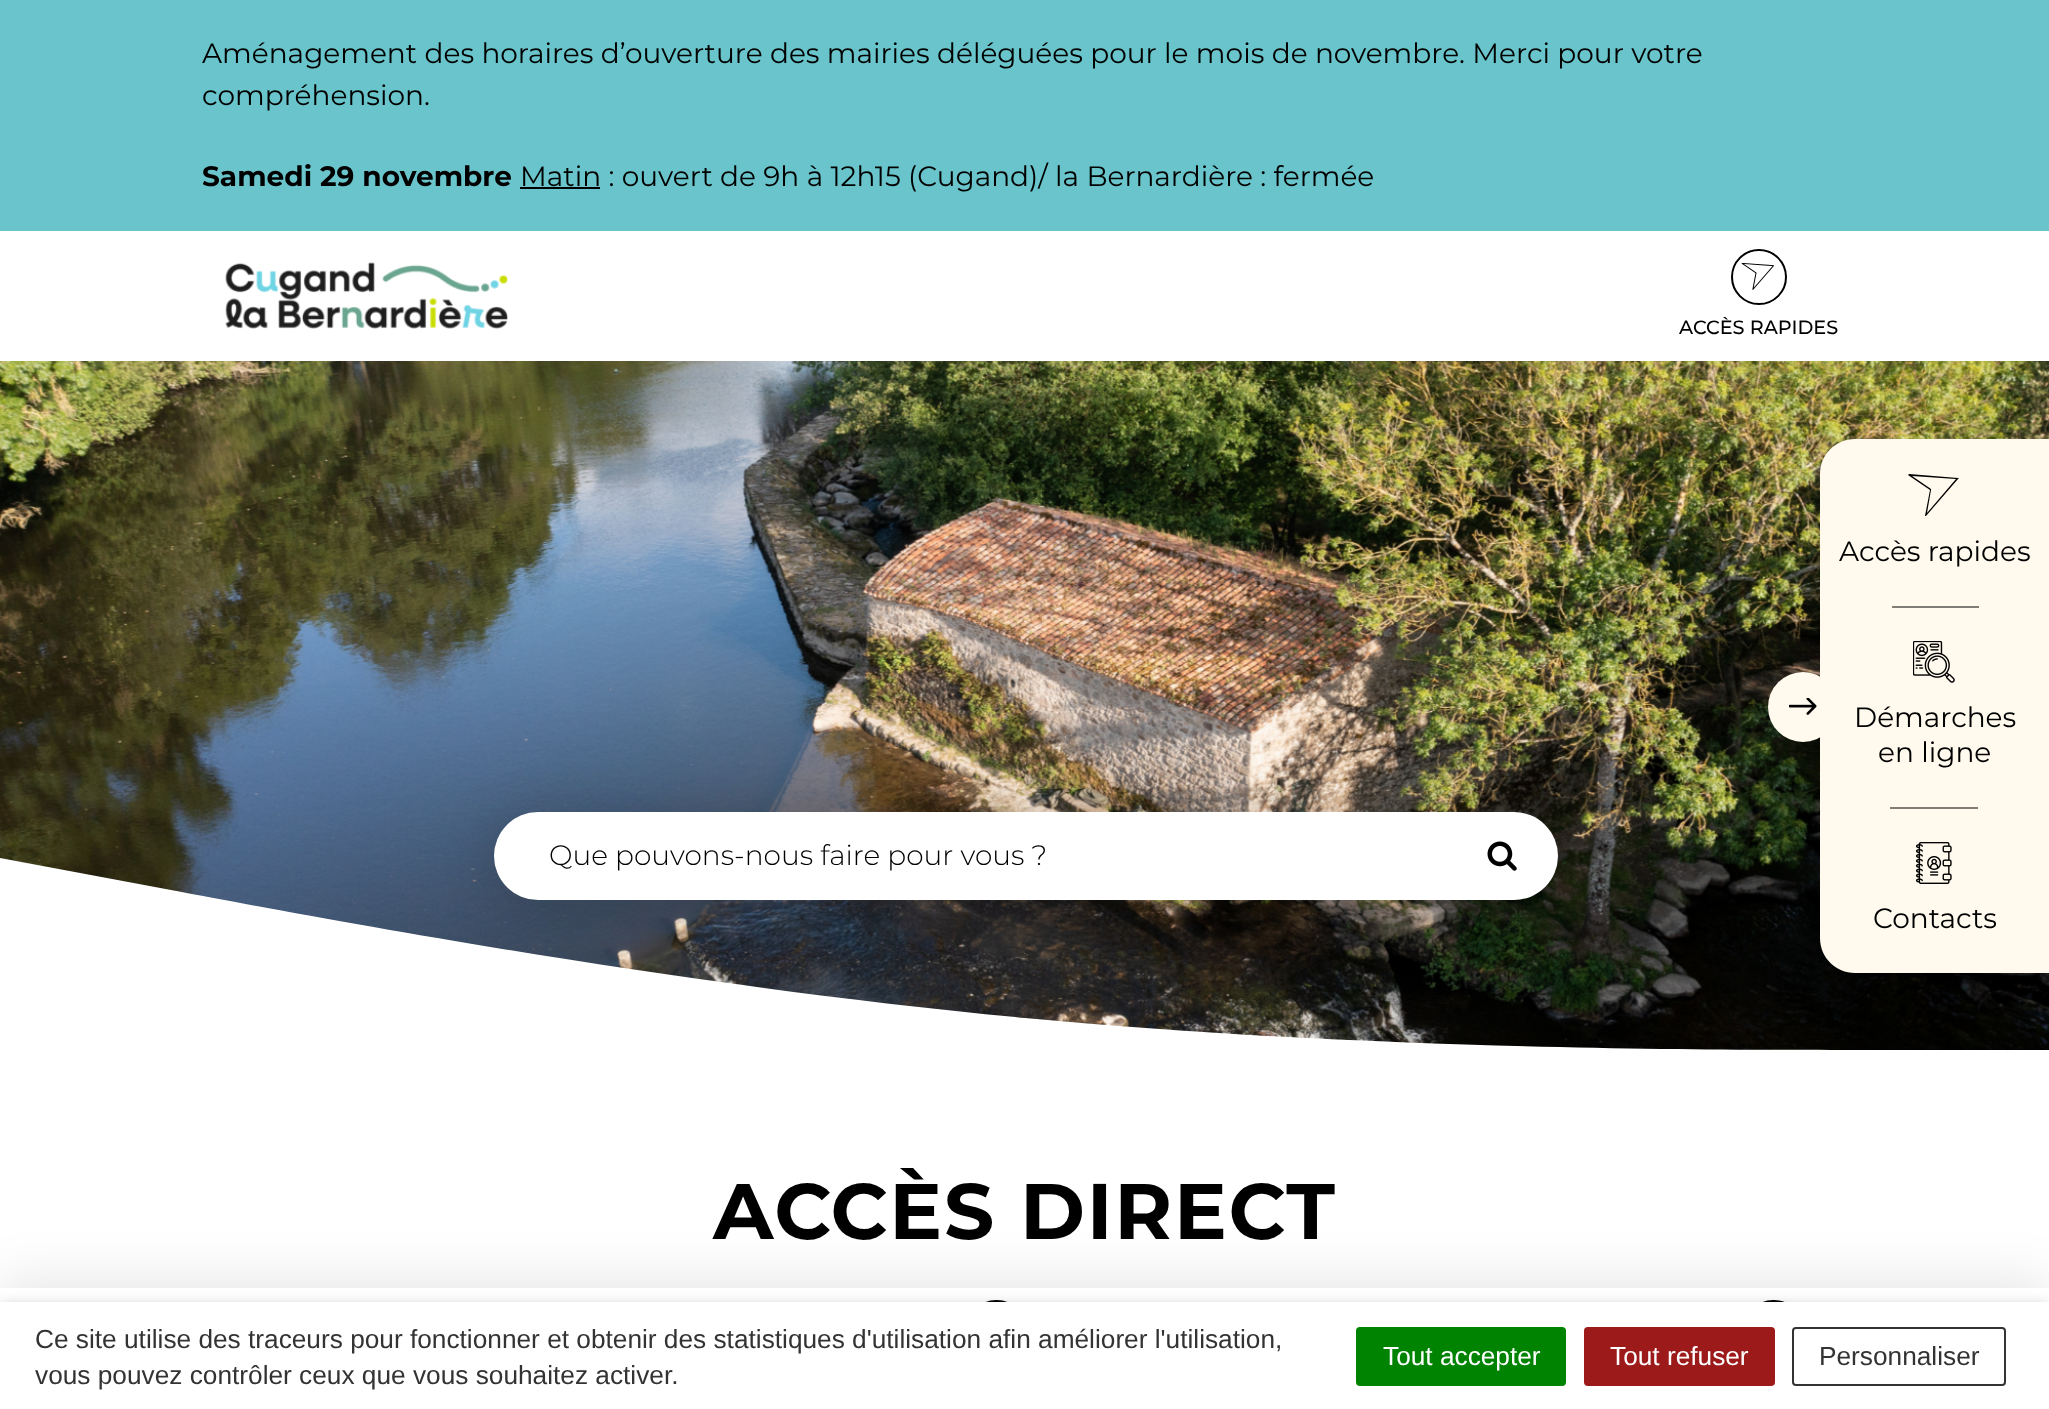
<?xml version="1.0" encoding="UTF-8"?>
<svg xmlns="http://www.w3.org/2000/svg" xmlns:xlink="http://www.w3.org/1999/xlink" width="2049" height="1409">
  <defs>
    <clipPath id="clip1"><rect y="858" width="2049" height="220" /></clipPath>
  </defs>
  <rect width="100%" height="100%" fill="#ffffff" />
  <rect width="2049" height="231" fill="#69c5cb" />
  <rect x="520" y="187" width="80" height="2" fill="#000000" />
  <image x="225" y="262" width="283" height="67" xlink:href="image1.png" />
  <circle cx="1759" cy="277" r="27" fill="none" stroke="#000000" stroke-width="2" />
  <image x="1741" y="263" width="33" height="27" xlink:href="image2.png" />
  <rect y="1281" width="2049" height="123" fill="#000000" fill-opacity="0.1" filter="blur(26px)" />
  <rect y="1288" width="2049" height="14" fill="#ffffff" />
  <rect x="967" y="1301" width="59" height="60" rx="29.5" fill="none" stroke="#000000" stroke-width="2" />
  <rect x="1744" y="1301" width="59" height="60" rx="29.5" fill="none" stroke="#000000" stroke-width="2" />
  <image x="0" y="361" width="2049" height="689" xlink:href="image3.png" />
  <g clip-path="url(#clip1)">
    <path d="M 2049 1050 h -171 c -170 0 -512 0 -853 -32 c -342 -32 -684 -96 -854 -128 l -171 -32 v 222 h 2049 z" fill="#ffffff" fill-rule="evenodd" />
  </g>
  <rect x="494" y="819" width="1064" height="88" rx="44" fill="#000000" fill-opacity="0.2" filter="blur(26px)" />
  <rect x="494" y="812" width="1064" height="88" rx="44" fill="#ffffff" />
  <image x="1487" y="841" width="30" height="30" xlink:href="image4.png" />
  <path d="M 1855 439 h 194 v 534 h -194 c -19.5 0 -35 -15.5 -35 -35 v -464 c 0 -19.5 15.5 -35 35 -35 z" fill="#fffaed" />
  <circle cx="1803" cy="707" r="35" fill="#fffaed" />
  <image x="1789" y="698" width="28" height="17" xlink:href="image5.png" />
  <path d="M 1958 478 l -49 -4 l -1 1 l 22 15 l -5 26 h 1 l 32 -37 c 1 -1 1 -1 0 -1 z m -31 35 l 4 -23 v -1 l -19 -13 l 44 3 z" fill="#000000" />
  <rect x="1892" y="606" width="87" height="2" fill="#807d77" />
  <image x="1913" y="641" width="42" height="42" xlink:href="image6.png" />
  <rect x="1890" y="807" width="88" height="2" fill="#807d77" />
  <image x="1915" y="842" width="37" height="42" xlink:href="image7.png" />
  <rect y="1311" width="2049" height="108" fill="#000000" fill-opacity="0.5" filter="blur(9px)" />
  <rect y="1302" width="2049" height="107" fill="#ffffff" />
  <rect x="1356" y="1327" width="210" height="59" rx="4" fill="#008300" />
  <rect x="1584" y="1327" width="191" height="59" rx="4" fill="#9c1a1a" />
  <rect x="1793" y="1328" width="212" height="57" rx="3" fill="none" stroke="#333333" stroke-width="2" />
  <text x="202" y="63" style="font-family: Montserrat; font-size: 28px; fill: #000000">Aménagement des horaires d’ouverture des mairies déléguées pour le mois de novembre. Merci pour votre</text>
  <text x="202" y="105" style="font-family: Montserrat; font-size: 28px; fill: #000000">compréhension.</text>
  <text x="202" y="186" style="font-family: Montserrat; font-size: 28px; font-weight: bold; fill: #000000">Samedi 29 novembre</text>
  <text x="520" y="186" style="font-family: Montserrat; font-size: 28px; fill: #000000">Matin : ouvert de 9h à 12h15 (Cugand)/ la Bernardière : fermée</text>
  <text x="1679" y="334" style="font-family: Montserrat; font-size: 19.25px; font-weight: 500; fill: #000000">ACCÈS RAPIDES</text>
  <text x="549" y="865" style="font-family: Montserrat; font-size: 28px; font-weight: 300; fill: #000000">Que pouvons-nous faire pour vous ?</text>
  <text x="1839" y="561" style="font-family: Montserrat; font-size: 28px; fill: #000000">Accès rapides</text>
  <text x="1854" y="727" style="font-family: Montserrat; font-size: 28px; fill: #000000">Démarches</text>
  <text x="1878" y="762" style="font-family: Montserrat; font-size: 28px; fill: #000000">en ligne</text>
  <text x="1873" y="928" style="font-family: Montserrat; font-size: 28px; fill: #000000">Contacts</text>
  <text x="713" y="1239" style="font-family: Montserrat; font-size: 78.75px; font-weight: bold; letter-spacing: 1.75px; fill: #000000">ACCÈS DIRECT</text>
  <text x="35" y="1348" style="font-family: Liberation Sans; font-size: 26.25px; fill: #333333">Ce site utilise des traceurs pour fonctionner et obtenir des statistiques d'utilisation afin améliorer l'utilisation,</text>
  <text x="35" y="1384" style="font-family: Liberation Sans; font-size: 26.25px; fill: #333333">vous pouvez contrôler ceux que vous souhaitez activer.</text>
  <text x="1383" y="1365" style="font-family: Liberation Sans; font-size: 26.25px; fill: #ffffff">Tout accepter</text>
  <text x="1610" y="1365" style="font-family: Liberation Sans; font-size: 26.25px; fill: #ffffff">Tout refuser</text>
  <text x="1819" y="1365" style="font-family: Liberation Sans; font-size: 26.25px; fill: #333333">Personnaliser</text>
</svg>
